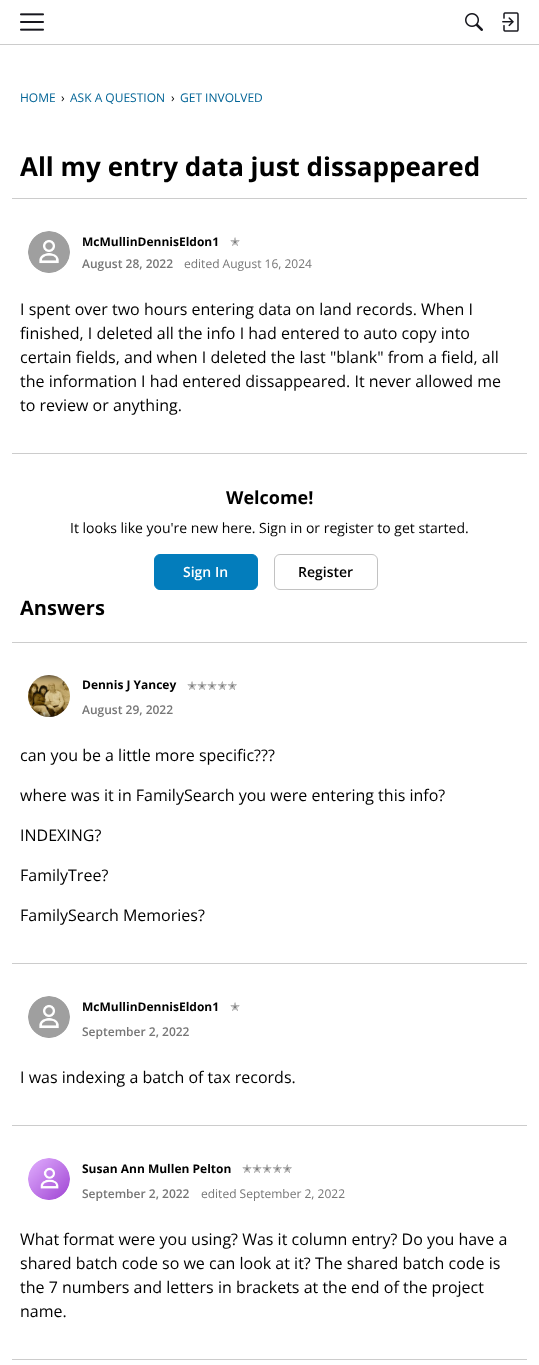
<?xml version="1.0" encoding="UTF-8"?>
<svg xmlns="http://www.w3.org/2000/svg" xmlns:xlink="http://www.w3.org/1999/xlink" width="539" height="1365">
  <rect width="100%" height="100%" fill="#ffffff" />
  <rect y="44" width="539" height="1" fill="#cccccc" />
  <image x="20" y="13" width="24" height="18" xlink:href="image1.png" />
  <image x="465" y="13" width="18" height="18" xlink:href="image2.png" />
  <image x="502" y="12" width="17" height="20" xlink:href="image3.png" />
  <rect x="12" y="198" width="515" height="1" fill="#cccccc" />
  <image x="28" y="231" width="42" height="42" xlink:href="image4.png" />
  <rect x="12" y="453" width="515" height="1" fill="#cccccc" />
  <rect x="154.5" y="554.5" width="103" height="35" rx="5.5" fill="#037dbc" stroke="#037dbc" />
  <rect x="274.5" y="554.5" width="103" height="35" rx="5.5" fill="none" stroke="#c2c2c2" />
  <rect x="12" y="642" width="515" height="1" fill="#cccccc" />
  <image x="28" y="675" width="42" height="42" xlink:href="image5.png" />
  <rect x="12" y="963" width="515" height="1" fill="#cccccc" />
  <image x="28" y="996" width="42" height="42" xlink:href="image6.png" />
  <rect x="12" y="1125" width="515" height="1" fill="#cccccc" />
  <image x="28" y="1158" width="42" height="42" xlink:href="image7.png" />
  <rect x="12" y="1359" width="515" height="1" fill="#cccccc" />
  <text x="20" y="102" style="font-family: Open Sans; font-size: 12px; fill: #026496">HOME</text>
  <text x="61" y="102" style="font-family: Open Sans; font-size: 12px; fill: #000000">›</text>
  <text x="70" y="102" style="font-family: Open Sans; font-size: 12px; fill: #026496">ASK A QUESTION</text>
  <text x="171" y="102" style="font-family: Open Sans; font-size: 12px; fill: #000000">›</text>
  <text x="180" y="102" style="font-family: Open Sans; font-size: 12px; fill: #026496">GET INVOLVED</text>
  <text x="20" y="176" style="font-family: Open Sans; font-size: 26px; font-weight: bold; fill: #000000">All my entry data just dissappeared</text>
  <text x="82" y="246" style="font-family: Open Sans; font-size: 12px; font-weight: bold; fill: #000000">McMullinDennisEldon1</text>
  <text x="230" y="246" style="font-family: DejaVu Sans; font-size: 12px; fill: #767676">✭</text>
  <text x="82" y="268" style="font-family: Open Sans; font-size: 12px; font-weight: 600; fill: #767676">August 28, 2022</text>
  <text x="184" y="268" style="font-family: Open Sans; font-size: 12px; fill: #767676">edited August 16, 2024</text>
  <text x="20" y="315" style="font-family: Open Sans; font-size: 16px; fill: #000000">I spent over two hours entering data on land records. When I</text>
  <text x="20" y="339" style="font-family: Open Sans; font-size: 16px; fill: #000000">finished, I deleted all the info I had entered to auto copy into</text>
  <text x="20" y="363" style="font-family: Open Sans; font-size: 16px; fill: #000000">certain fields, and when I deleted the last "blank" from a field, all</text>
  <text x="20" y="387" style="font-family: Open Sans; font-size: 16px; fill: #000000">the information I had entered dissappeared. It never allowed me</text>
  <text x="20" y="411" style="font-family: Open Sans; font-size: 16px; fill: #000000">to review or anything.</text>
  <text x="226" y="504" style="font-family: Open Sans; font-size: 18px; font-weight: bold; fill: #000000">Welcome!</text>
  <text x="70" y="533" style="font-family: Open Sans; font-size: 14px; fill: #000000">It looks like you're new here. Sign in or register to get started.</text>
  <text x="183" y="577" style="font-family: Open Sans; font-size: 14px; font-weight: 600; fill: #ffffff">Sign In</text>
  <text x="298" y="577" style="font-family: Open Sans; font-size: 14px; font-weight: 600; fill: #000000">Register</text>
  <text x="20" y="615" style="font-family: Open Sans; font-size: 20px; font-weight: bold; fill: #000000">Answers</text>
  <text x="82" y="689" style="font-family: Open Sans; font-size: 12px; font-weight: bold; fill: #000000">Dennis J Yancey</text>
  <text x="187" y="690" style="font-family: DejaVu Sans; font-size: 12px; fill: #767676">✭✭✭✭✭</text>
  <text x="82" y="714" style="font-family: Open Sans; font-size: 12px; font-weight: 600; fill: #767676">August 29, 2022</text>
  <text x="20" y="761" style="font-family: Open Sans; font-size: 16px; fill: #000000">can you be a little more specific???</text>
  <text x="20" y="801" style="font-family: Open Sans; font-size: 16px; fill: #000000">where was it in FamilySearch you were entering this info?</text>
  <text x="20" y="841" style="font-family: Open Sans; font-size: 16px; fill: #000000">INDEXING?</text>
  <text x="20" y="881" style="font-family: Open Sans; font-size: 16px; fill: #000000">FamilyTree?</text>
  <text x="20" y="921" style="font-family: Open Sans; font-size: 16px; fill: #000000">FamilySearch Memories?</text>
  <text x="82" y="1011" style="font-family: Open Sans; font-size: 12px; font-weight: bold; fill: #000000">McMullinDennisEldon1</text>
  <text x="230" y="1011" style="font-family: DejaVu Sans; font-size: 12px; fill: #767676">✭</text>
  <text x="82" y="1036" style="font-family: Open Sans; font-size: 12px; font-weight: 600; fill: #767676">September 2, 2022</text>
  <text x="20" y="1083" style="font-family: Open Sans; font-size: 16px; fill: #000000">I was indexing a batch of tax records.</text>
  <text x="82" y="1173" style="font-family: Open Sans; font-size: 12px; font-weight: bold; fill: #000000">Susan Ann Mullen Pelton</text>
  <text x="242" y="1173" style="font-family: DejaVu Sans; font-size: 12px; fill: #767676">✭✭✭✭✭</text>
  <text x="82" y="1198" style="font-family: Open Sans; font-size: 12px; font-weight: 600; fill: #767676">September 2, 2022</text>
  <text x="201" y="1198" style="font-family: Open Sans; font-size: 12px; fill: #767676">edited September 2, 2022</text>
  <text x="20" y="1245" style="font-family: Open Sans; font-size: 16px; fill: #000000">What format were you using? Was it column entry? Do you have a</text>
  <text x="20" y="1269" style="font-family: Open Sans; font-size: 16px; fill: #000000">shared batch code so we can look at it? The shared batch code is</text>
  <text x="20" y="1293" style="font-family: Open Sans; font-size: 16px; fill: #000000">the 7 numbers and letters in brackets at the end of the project</text>
  <text x="20" y="1317" style="font-family: Open Sans; font-size: 16px; fill: #000000">name.</text>
</svg>
